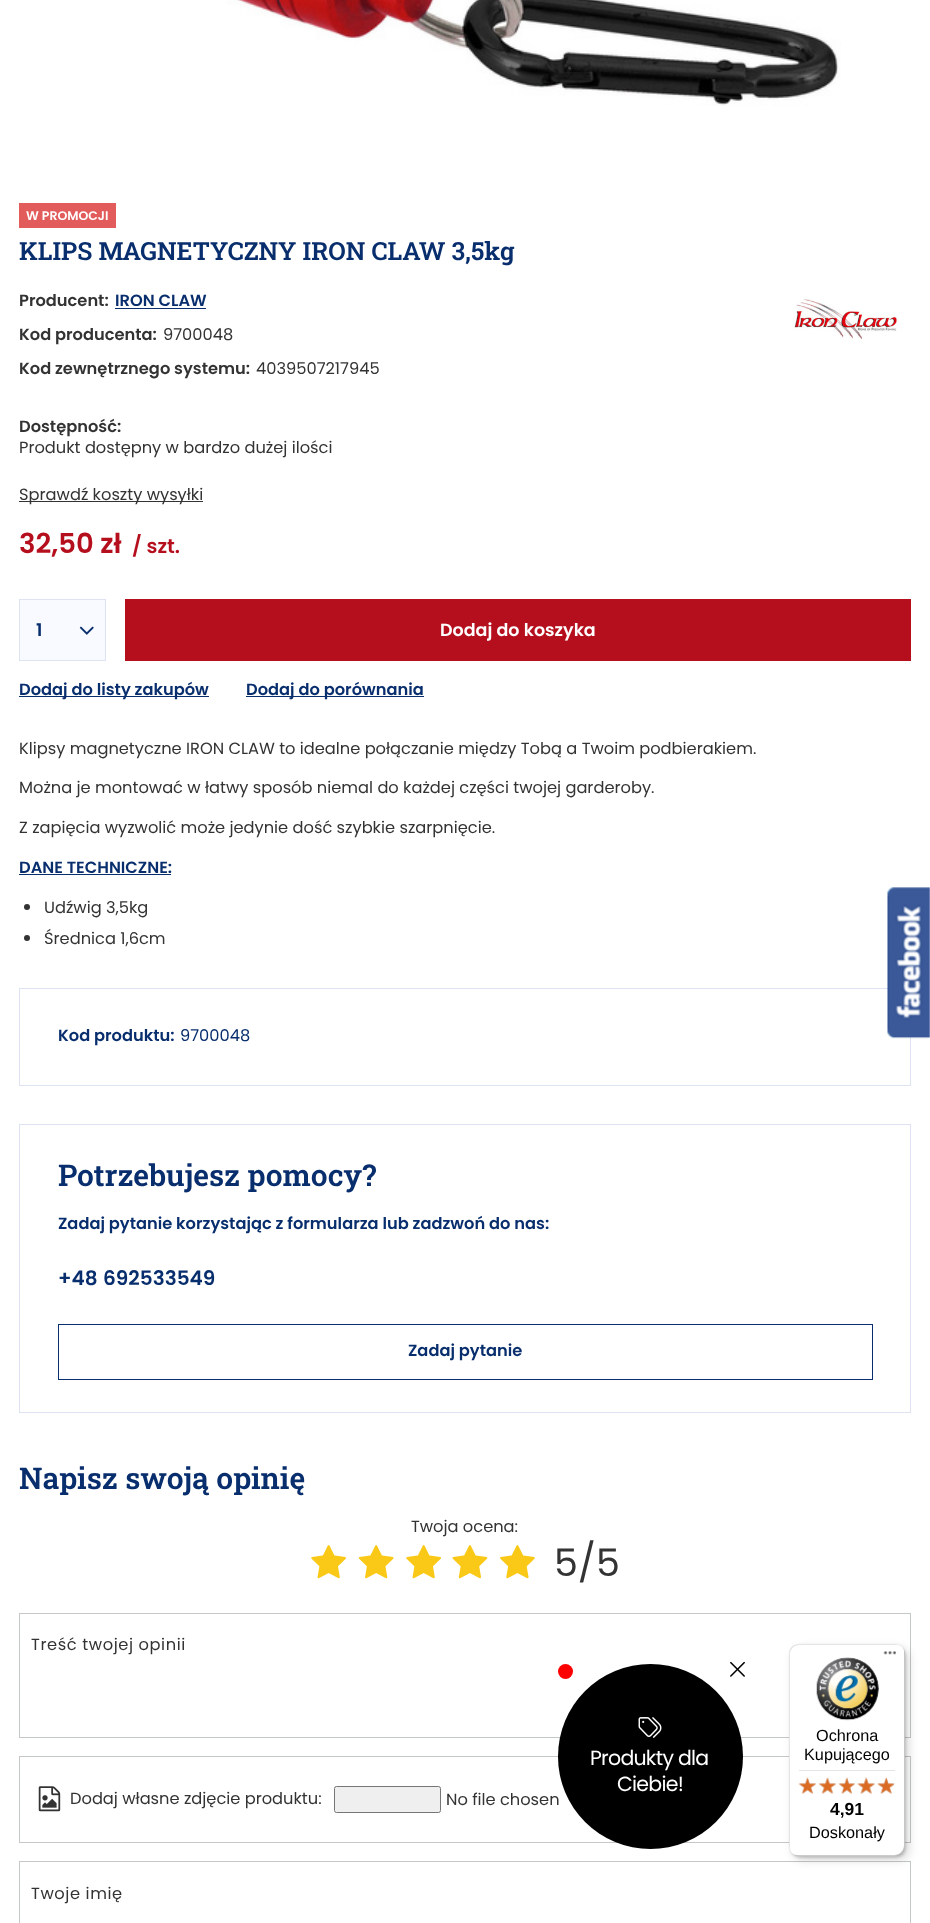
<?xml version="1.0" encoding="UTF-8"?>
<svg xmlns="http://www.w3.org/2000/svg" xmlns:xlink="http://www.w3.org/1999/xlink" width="930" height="1923">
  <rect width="100%" height="100%" fill="#ffffff" />
  <image x="226" y="0" width="615" height="106" xlink:href="image1.png" />
  <rect x="19" y="203" width="97" height="25" fill="#e35c5c" />
  <rect x="115" y="308" width="91" height="1" fill="#082e6d" />
  <image x="793" y="299" width="105" height="41" xlink:href="image2.png" />
  <rect x="19" y="501" width="184" height="1" fill="#333333" />
  <rect x="19.5" y="599.5" width="86" height="61" fill="#f8faff" stroke="#dde3f2" />
  <image x="79" y="626" width="15" height="9" xlink:href="image3.png" />
  <rect x="125" y="599" width="786" height="62" fill="#b50f1d" />
  <rect x="19" y="696" width="190" height="1" fill="#082e6d" />
  <rect x="246" y="696" width="178" height="1" fill="#082e6d" />
  <rect x="19" y="874" width="152" height="1" fill="#082e6d" />
  <circle cx="27" cy="907" r="3" fill="#333333" />
  <circle cx="27" cy="938" r="3" fill="#333333" />
  <rect x="19.5" y="988.5" width="891" height="97" fill="none" stroke="#dde3f2" />
  <rect x="19.5" y="1124.5" width="891" height="288" fill="none" stroke="#dde3f2" />
  <rect x="58.5" y="1324.5" width="814" height="55" fill="none" stroke="#082e6d" />
  <image x="311" y="1545" width="36" height="34" xlink:href="image4.png" />
  <image x="358" y="1545" width="36" height="34" xlink:href="image5.png" />
  <image x="406" y="1545" width="36" height="34" xlink:href="image4.png" />
  <image x="452" y="1545" width="36" height="34" xlink:href="image6.png" />
  <image x="500" y="1545" width="35" height="34" xlink:href="image7.png" />
  <rect x="19.5" y="1613.5" width="891" height="124" fill="none" stroke="#c4c7c8" />
  <rect x="19.5" y="1756.5" width="891" height="86" fill="none" stroke="#c4c7c8" />
  <image x="38" y="1786" width="23" height="26" xlink:href="image8.png" />
  <rect x="334.5" y="1786.5" width="106" height="26" rx="2" fill="#efefef" stroke="#767676" />
  <rect x="19.5" y="1861.5" width="891" height="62" fill="none" stroke="#c4c7c8" />
  <image x="887" y="887" width="43" height="152" xlink:href="image9.png" />
  <rect x="793" y="1648" width="116" height="212" rx="10" fill="#000000" fill-opacity="0.15" filter="blur(5px)" />
  <rect x="790" y="1645" width="116" height="213" rx="10" fill="#000000" fill-opacity="0.15" filter="blur(1px)" />
  <rect x="789" y="1644" width="116" height="212" rx="10" fill="#ffffff" />
  <path d="M 800 1645 h 96 c 2 0 4 0 5 1 c -1 -1 -4 -2 -6 -2 h -96 c -6 0 -10 4 -10 10 v 192 c 0 2 1 4 2 6 l -1 -4 v -193 c 0 -6 4 -10 10 -10 z" fill="#e5e5e5" />
  <path d="M 793 1854 c 1 1 4 2 6 2 h 96 c 6 0 10 -4 10 -10 v -192 c 0 -2 -1 -4 -2 -6 c 1 1 1 3 1 4 v 193 c 0 6 -5 10 -10 10 h -96 c -2 0 -4 0 -5 -1 z" fill="#000000" fill-opacity="0.2" />
  <path d="M 894 1856 h 1 c 6 0 10 -4 10 -10 v -192 c 0 -2 -1 -5 -2 -6 c 1 1 1 3 1 5 v 193 c 0 5 -4 10 -10 10 z" fill="#323232" fill-opacity="0.2" />
  <path d="M 894 1856 h 1 c 6 0 10 -4 10 -10 v -192 c 0 -3 -1 -6 -4 -8 c 2 2 3 5 3 7 v 193 c 0 5 -4 10 -10 10 z" fill="#ffffff" fill-opacity="0.3" />
  <image x="883" y="1651" width="13" height="4" xlink:href="image12.png" />
  <image x="816" y="1657" width="63" height="64" xlink:href="image13.png" />
  <rect x="799" y="1770" width="96" height="1" fill="#e5e5e5" />
  <image x="799" y="1778" width="17" height="16" xlink:href="image19.png" />
  <image x="798" y="1777" width="18" height="17" xlink:href="image14.png" />
  <image x="819" y="1778" width="17" height="16" xlink:href="image20.png" />
  <image x="818" y="1777" width="19" height="17" xlink:href="image15.png" />
  <image x="839" y="1778" width="16" height="16" xlink:href="image21.png" />
  <image x="838" y="1777" width="17" height="17" xlink:href="image16.png" />
  <image x="857" y="1777" width="18" height="17" xlink:href="image22.png" />
  <image x="857" y="1777" width="18" height="17" xlink:href="image17.png" />
  <image x="877" y="1778" width="18" height="16" xlink:href="image23.png" />
  <image x="877" y="1777" width="17" height="17" xlink:href="image18.png" />
  <text x="26" y="220" style="font-family: Poppins; font-size: 12.5px; font-weight: 600; fill: #ffffff">W PROMOCJI</text>
  <text x="19" y="260" style="font-family: Roboto Slab; font-size: 25px; font-weight: 600; fill: #082e6d">KLIPS MAGNETYCZNY IRON CLAW 3,5kg</text>
  <text x="19" y="306" style="font-family: Poppins; font-size: 16.25px; font-weight: 600; fill: #333333">Producent:</text>
  <text x="115" y="306" style="font-family: Poppins; font-size: 16.25px; font-weight: 600; fill: #082e6d">IRON CLAW</text>
  <text x="19" y="340" style="font-family: Poppins; font-size: 16.25px; font-weight: 600; fill: #333333">Kod producenta:</text>
  <text x="163" y="340" style="font-family: Poppins; font-size: 16.25px; fill: #333333">9700048</text>
  <text x="19" y="374" style="font-family: Poppins; font-size: 16.25px; font-weight: 600; fill: #333333">Kod zewnętrznego systemu:</text>
  <text x="256" y="374" style="font-family: Poppins; font-size: 16.25px; fill: #333333">4039507217945</text>
  <text x="19" y="432" style="font-family: Poppins; font-size: 16.25px; font-weight: 600; fill: #333333">Dostępność:</text>
  <text x="19" y="453" style="font-family: Poppins; font-size: 16.25px; fill: #333333">Produkt dostępny w bardzo dużej ilości</text>
  <text x="19" y="500" style="font-family: Poppins; font-size: 16.25px; fill: #333333">Sprawdź koszty wysyłki</text>
  <text x="19" y="553" style="font-family: Poppins; font-size: 27.5px; font-weight: 600; fill: #b50f1d">32,50 zł</text>
  <text x="132" y="553" style="font-family: Poppins; font-size: 20px; font-weight: 600; fill: #b50f1d">/ szt.</text>
  <text x="36" y="636" style="font-family: Poppins; font-size: 17.5px; font-weight: 600; fill: #082e6d">1</text>
  <text x="440" y="636" style="font-family: Poppins; font-size: 17.5px; font-weight: 600; fill: #ffffff">Dodaj do koszyka</text>
  <text x="19" y="695" style="font-family: Poppins; font-size: 16.25px; font-weight: 600; fill: #082e6d">Dodaj do listy zakupów</text>
  <text x="246" y="695" style="font-family: Poppins; font-size: 16.25px; font-weight: 600; fill: #082e6d">Dodaj do porównania</text>
  <text x="19" y="754" style="font-family: Poppins; font-size: 16.25px; fill: #333333">Klipsy magnetyczne IRON CLAW to idealne połączanie między Tobą a Twoim podbierakiem.</text>
  <text x="19" y="793" style="font-family: Poppins; font-size: 16.25px; fill: #333333">Można je montować w łatwy sposób niemal do każdej części twojej garderoby.</text>
  <text x="19" y="833" style="font-family: Poppins; font-size: 16.25px; fill: #333333">Z zapięcia wyzwolić może jedynie dość szybkie szarpnięcie.</text>
  <text x="19" y="873" style="font-family: Poppins; font-size: 16.25px; font-weight: 600; fill: #082e6d">DANE TECHNICZNE:</text>
  <text x="44" y="913" style="font-family: Poppins; font-size: 16.25px; fill: #333333">Udźwig 3,5kg</text>
  <text x="44" y="944" style="font-family: Poppins; font-size: 16.25px; fill: #333333">Średnica 1,6cm</text>
  <text x="58" y="1041" style="font-family: Poppins; font-size: 16.25px; font-weight: 600; fill: #082e6d">Kod produktu:</text>
  <text x="180" y="1041" style="font-family: Poppins; font-size: 16.25px; fill: #082e6d">9700048</text>
  <text x="58" y="1186" style="font-family: Roboto Slab; font-size: 30px; font-weight: 600; fill: #082e6d">Potrzebujesz pomocy?</text>
  <text x="58" y="1229" style="font-family: Poppins; font-size: 16.25px; font-weight: 600; fill: #082e6d">Zadaj pytanie korzystając z formularza lub zadzwoń do nas:</text>
  <text x="58" y="1285" style="font-family: Poppins; font-size: 20px; font-weight: 600; fill: #082e6d">+48</text>
  <text x="103" y="1285" style="font-family: Poppins; font-size: 20px; font-weight: 600; fill: #082e6d">692533549</text>
  <text x="408" y="1356" style="font-family: Poppins; font-size: 16.25px; font-weight: 600; fill: #082e6d">Zadaj pytanie</text>
  <text x="19" y="1489" style="font-family: Roboto Slab; font-size: 30px; font-weight: 600; fill: #082e6d">Napisz swoją opinię</text>
  <text x="411" y="1532" style="font-family: Poppins; font-size: 16.25px; fill: #333333">Twoja ocena:</text>
  <text x="554" y="1576" style="font-family: Poppins; font-size: 38px; fill: #333333">5/5</text>
  <text x="31" y="1650" style="font-family: Poppins; font-size: 16.25px; letter-spacing: 0.6px; fill: #333333">Treść twojej opinii</text>
  <text x="70" y="1804" style="font-family: Poppins; font-size: 16.25px; fill: #333333">Dodaj własne zdjęcie produktu:</text>
  <text x="446" y="1805" style="font-family: Poppins; font-size: 16.25px; fill: #333333">No file chosen</text>
  <text x="31" y="1899" style="font-family: Poppins; font-size: 16.25px; letter-spacing: 0.6px; fill: #333333">Twoje imię</text>
  <circle cx="650.5" cy="1756.5" r="92.5" fill="#000000" />
  <circle cx="565.5" cy="1671.5" r="7.5" fill="#ff0000" />
  <image x="730" y="1661" width="15" height="16" xlink:href="image10.png" />
  <image x="638" y="1717" width="24" height="21" xlink:href="image11.png" />
  <text x="590" y="1765" style="font-family: Poppins; font-size: 20.5px; letter-spacing: -0.75px; fill: #ffffff">Produkty dla</text>
  <text x="617" y="1791" style="font-family: Poppins; font-size: 20.5px; letter-spacing: -0.75px; fill: #ffffff">Ciebie!</text>
  <text x="816" y="1741" style="font-family: Liberation Sans; font-size: 16.25px; fill: #000000">Ochrona</text>
  <text x="804" y="1760" style="font-family: Liberation Sans; font-size: 16.25px; fill: #000000">Kupującego</text>
  <text x="830" y="1815" style="font-family: Liberation Sans; font-size: 17.5px; font-weight: bold; fill: #000000">4,91</text>
  <text x="809" y="1838" style="font-family: Liberation Sans; font-size: 16.25px; fill: #000000">Doskonały</text>
</svg>
